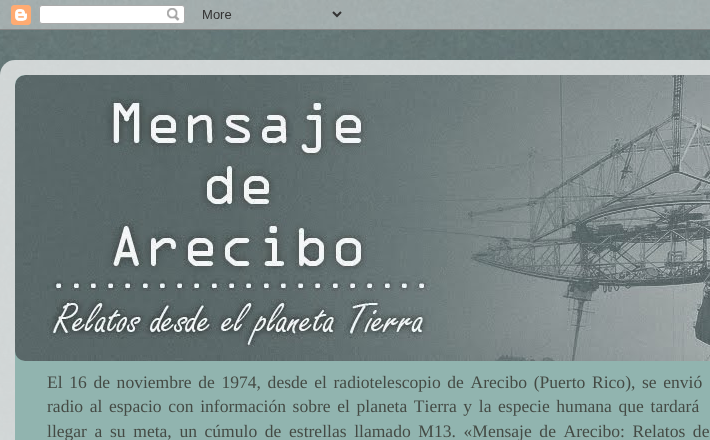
import math
import cairocffi as cairo

surface = cairo.ImageSurface(cairo.FORMAT_RGB24, 710, 440)
ctx = cairo.Context(surface)
options = cairo.FontOptions()
options.set_hint_metrics(cairo.HINT_METRICS_OFF)
options.set_hint_style(cairo.HINT_STYLE_NONE)
ctx.set_font_options(options)
ctx.set_miter_limit(4)


def rgb(r, g, b):
    ctx.set_source_rgb(r / 255, g / 255, b / 255)


def face(family, size, italic, bold):
    ctx.select_font_face(family, cairo.FONT_SLANT_ITALIC if italic else cairo.FONT_SLANT_NORMAL, cairo.FONT_WEIGHT_BOLD if bold else cairo.FONT_WEIGHT_NORMAL)
    ctx.set_font_size(size)


def tracked(x, y, s, letter, word):
    ctx.move_to(x, y)
    for ch in s:
        ctx.show_text(ch)
        ctx.rel_move_to(letter + word * (ch == ' '), 0)


def rrect(x, y, w, h, r):
    ctx.new_sub_path()
    for i, (u, v) in enumerate([(x + w - r, y + h - r), (x + r, y + h - r), (x + r, y + r), (x + w - r, y + r)]):
        ctx.arc(u, v, r, i * math.pi / 2, (i + 1) * math.pi / 2)
    ctx.close_path()


def image(path, x, y, w, h):
    ctx.save()
    ctx.set_source_surface(cairo.ImageSurface.create_from_png(path), x, y)
    ctx.rectangle(x, y, w, h)
    ctx.fill()
    ctx.restore()


rgb(255, 255, 255)
ctx.paint()
image('image0.png', 0, 0, 710, 440)
image('image1.png', 0, 0, 710, 30)
image('image2.png', 0, 60, 710, 380)
rgb(145, 180, 175)
rrect(15, 75, 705, 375, 10)
ctx.fill()
image('image3.png', 15, 75, 10, 10)
image('image4.png', 15, 75, 695, 286)
face('Liberation Serif', 17.55, 0, 0)
rgb(68, 74, 68)
tracked(47, 388, 'El 16 de noviembre de 1974, desde el radiotelescopio de Arecibo (Puerto Rico), se envió', 0, 2.25)
tracked(47, 412, 'radio al espacio con información sobre el planeta Tierra y la especie humana que tardará', 0, 2.25)
tracked(47, 437, 'llegar a su meta, un cúmulo de estrellas llamado M13. «Mensaje de Arecibo: Relatos de', 0, 3.25)
surface.write_to_png('render.png')
